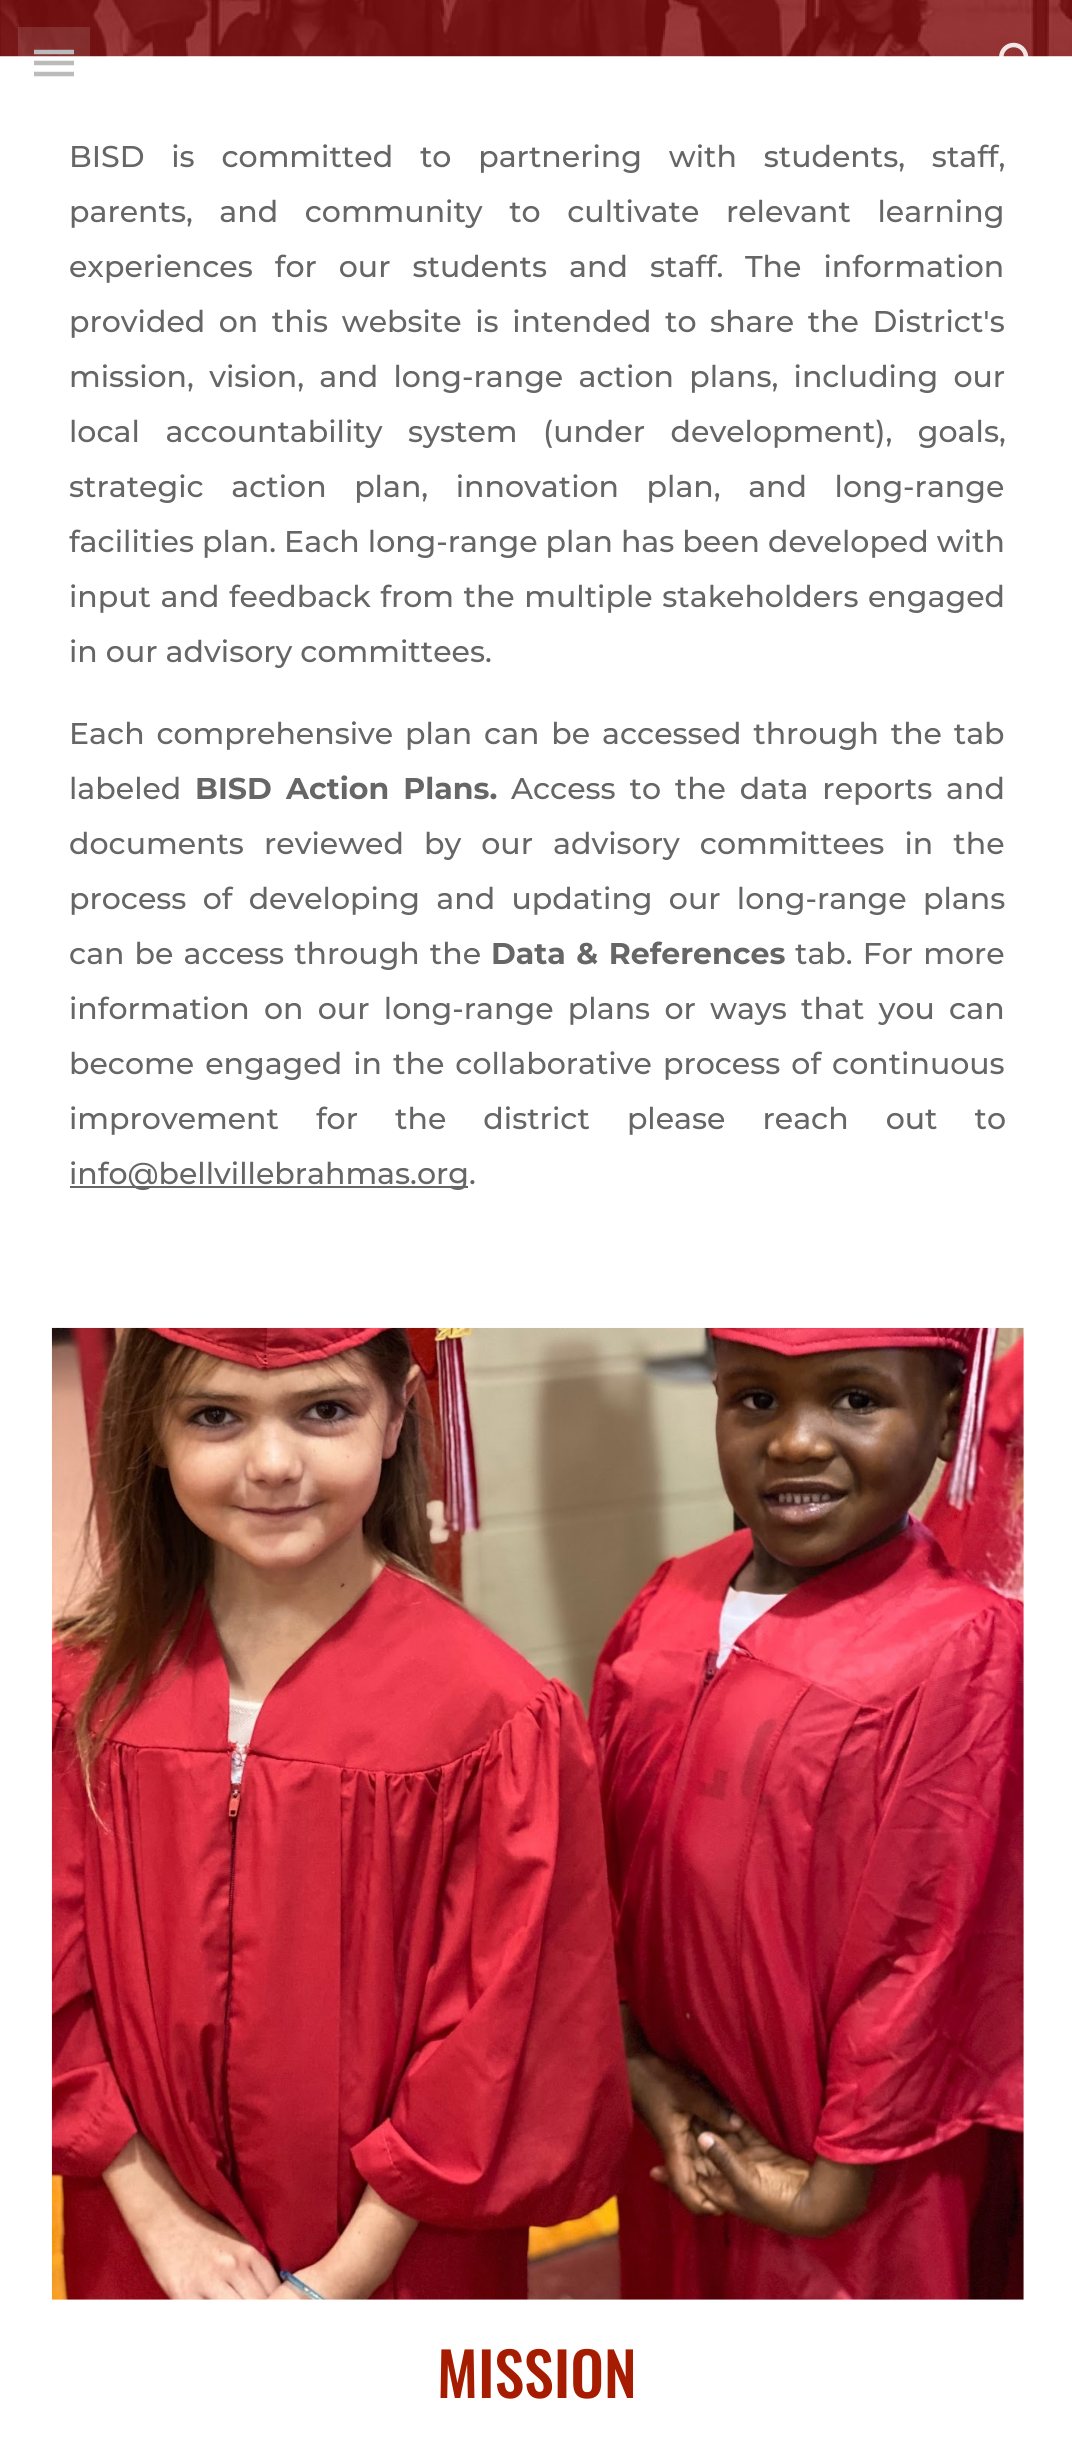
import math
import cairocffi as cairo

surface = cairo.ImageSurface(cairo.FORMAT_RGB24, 1072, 2443)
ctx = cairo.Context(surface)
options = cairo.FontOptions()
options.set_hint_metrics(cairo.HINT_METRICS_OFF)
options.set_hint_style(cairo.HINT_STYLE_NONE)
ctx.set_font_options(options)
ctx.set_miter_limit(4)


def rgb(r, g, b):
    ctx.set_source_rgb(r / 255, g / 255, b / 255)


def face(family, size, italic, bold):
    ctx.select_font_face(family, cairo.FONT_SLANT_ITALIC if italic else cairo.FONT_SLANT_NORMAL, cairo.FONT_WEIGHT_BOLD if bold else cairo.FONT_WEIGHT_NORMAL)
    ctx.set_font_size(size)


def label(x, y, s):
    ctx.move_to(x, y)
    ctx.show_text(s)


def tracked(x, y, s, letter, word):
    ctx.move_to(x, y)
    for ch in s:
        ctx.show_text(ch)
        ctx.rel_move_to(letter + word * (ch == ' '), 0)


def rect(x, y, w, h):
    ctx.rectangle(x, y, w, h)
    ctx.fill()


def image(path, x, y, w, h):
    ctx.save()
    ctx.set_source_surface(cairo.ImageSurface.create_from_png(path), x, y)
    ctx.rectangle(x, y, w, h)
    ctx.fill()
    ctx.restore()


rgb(255, 255, 255)
ctx.paint()
image('image1.png', 0, 0, 1072, 57)
ctx.new_path()
ctx.move_to(34, 52)
ctx.line_to(74, 52)
ctx.move_to(34, 63)
ctx.line_to(74, 63)
ctx.move_to(34, 74)
ctx.line_to(74, 74)
rgb(178, 178, 178)
ctx.set_line_width(4.5)
ctx.stroke()
ctx.set_source_rgba(1, 1, 1, 0.12)
rect(18, 27, 72, 49)
image('image0.png', 999, 42, 30, 15)
face('Montserrat Medium', 30, 0, 0)
rgb(102, 102, 102)
tracked(69, 167, 'BISD is committed to partnering with students, staff,', 0, 18.75)
tracked(69, 222, 'parents, and community to cultivate relevant learning', 0, 18.5)
tracked(69, 277, 'experiences for our students and staff.', 0, 14)
tracked(745, 277, 'The information', 0, 14)
tracked(69, 332, 'provided on this website is intended to share the District\'s', 0, 5.5)
tracked(69, 387, 'mission, vision, and long-range action plans, including our', 0, 7.25)
tracked(69, 442, 'local accountability system (under development), goals,', 0, 17.5)
tracked(69, 497, 'strategic action plan, innovation plan, and long-range', 0, 19.5)
label(69, 552, 'facilities plan. Each long-range plan has been developed with')
tracked(69, 607, 'input and feedback from the multiple stakeholders engaged', 0, 1.5)
label(69, 662, 'in our advisory committees.')
tracked(69, 744, 'Each comprehensive plan can be accessed through the tab', 0, 3.75)
label(69, 799, 'labeled')
face('Montserrat', 30, 0, 1)
tracked(195, 799, 'BISD Action Plans.', 0, 5.75)
face('Montserrat Medium', 30, 0, 0)
tracked(511, 799, 'Access to the data reports and', 0, 5.75)
tracked(69, 854, 'documents reviewed by our advisory committees in the', 0, 12)
tracked(69, 909, 'process of developing and updating our long-range plans', 0, 8.25)
tracked(69, 964, 'can be access through the', 0, 2)
face('Montserrat', 30, 0, 1)
tracked(491, 964, 'Data & References', 0, 2)
face('Montserrat Medium', 30, 0, 0)
tracked(795, 964, 'tab. For more', 0, 2)
tracked(69, 1019, 'information on our long-range plans or ways that you can', 0, 6.25)
tracked(69, 1074, 'become engaged in the collaborative process of continuous', 0, 3)
tracked(69, 1129, 'improvement for the district please reach out to', 0, 29)
rect(70, 1186, 398, 2)
label(69, 1184, 'info@bellvillebrahmas.org.')
image('image2.png', 51, 1327, 973, 973)
face('Oswald Medium', 60, 0, 0)
rgb(166, 28, 0)
label(437, 2398, 'MISSION')
surface.write_to_png('render.png')
